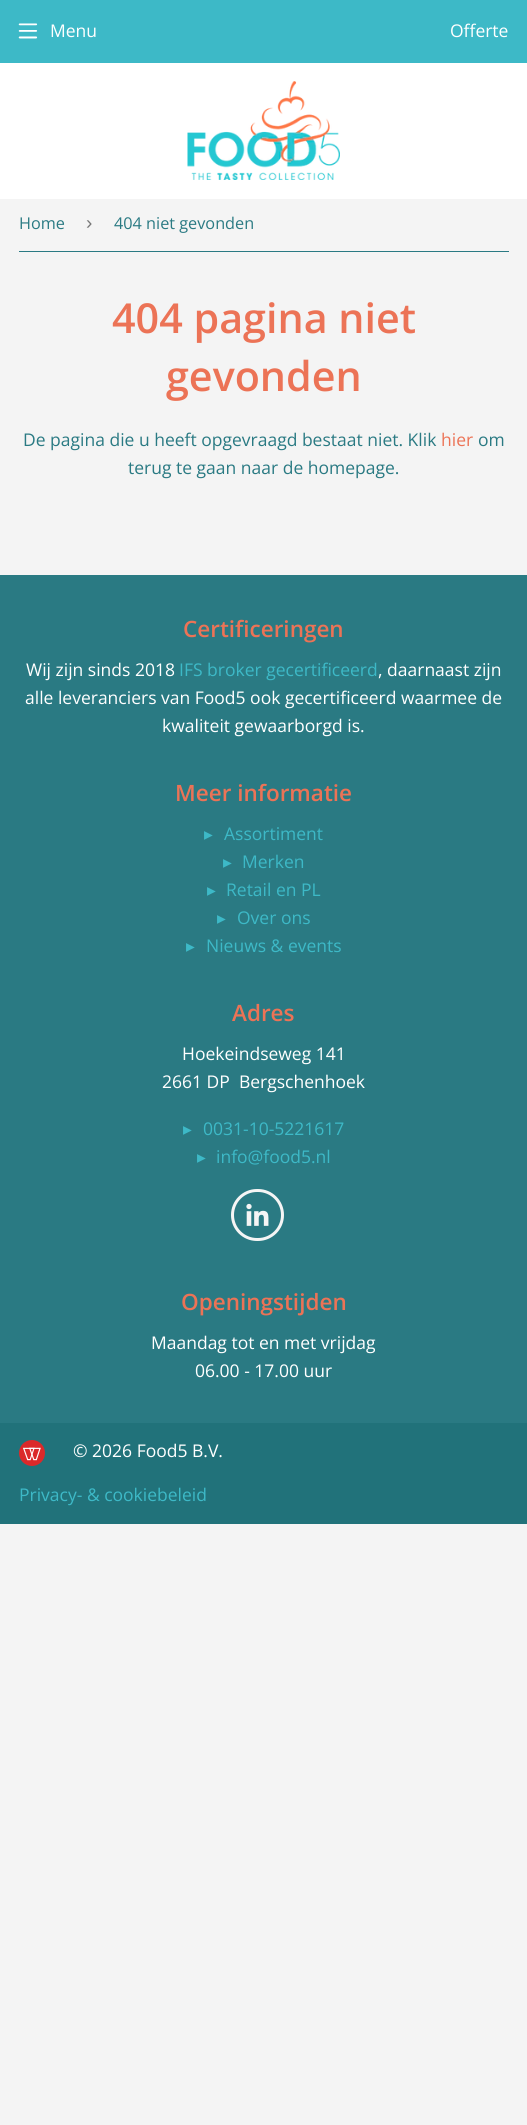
import math
import cairocffi as cairo

surface = cairo.ImageSurface(cairo.FORMAT_RGB24, 527, 2125)
ctx = cairo.Context(surface)
options = cairo.FontOptions()
options.set_hint_metrics(cairo.HINT_METRICS_OFF)
options.set_hint_style(cairo.HINT_STYLE_NONE)
ctx.set_font_options(options)
ctx.set_miter_limit(4)


def rgb(r, g, b):
    ctx.set_source_rgb(r / 255, g / 255, b / 255)


def face(family, size, italic, bold):
    ctx.select_font_face(family, cairo.FONT_SLANT_ITALIC if italic else cairo.FONT_SLANT_NORMAL, cairo.FONT_WEIGHT_BOLD if bold else cairo.FONT_WEIGHT_NORMAL)
    ctx.set_font_size(size)


def label(x, y, s):
    ctx.move_to(x, y)
    ctx.show_text(s)


def rect(x, y, w, h):
    ctx.rectangle(x, y, w, h)
    ctx.fill()


def rrect(x, y, w, h, r):
    ctx.new_sub_path()
    for i, (u, v) in enumerate([(x + w - r, y + h - r), (x + r, y + h - r), (x + r, y + r), (x + w - r, y + r)]):
        ctx.arc(u, v, r, i * math.pi / 2, (i + 1) * math.pi / 2)
    ctx.close_path()


def image(path, x, y, w, h):
    ctx.save()
    ctx.set_source_surface(cairo.ImageSurface.create_from_png(path), x, y)
    ctx.rectangle(x, y, w, h)
    ctx.fill()
    ctx.restore()


rgb(244, 244, 244)
ctx.paint()
rgb(61, 185, 199)
rect(0, 0, 527, 63)
image('image0.png', 18, 23, 20, 16)
face('Open Sans', 17.5, 0, 0)
rgb(255, 255, 255)
label(50, 37, 'Menu')
label(450, 37, 'Offerte')
rect(0, 63, 527, 136)
image('image1.png', 187, 81, 153, 99)
rgb(42, 122, 131)
rect(19, 251, 490, 1)
face('Open Sans', 16.25, 0, 0)
label(19, 229, 'Home')
face('Liberation Sans', 19, 0, 0)
rgb(118, 118, 118)
label(86, 229, '›')
face('Open Sans', 16.25, 0, 0)
rgb(42, 122, 131)
label(114, 229, '404 niet gevonden')
face('Open Sans SemiBold', 41.25, 0, 0)
rgb(236, 115, 86)
label(112, 333, '404 pagina niet')
label(166, 391, 'gevonden')
face('Open Sans', 17.5, 0, 0)
rgb(42, 122, 131)
label(23, 446, 'De pagina die u heeft opgevraagd bestaat niet. Klik')
rgb(236, 115, 86)
label(441, 446, 'hier')
rgb(42, 122, 131)
label(478, 446, 'om')
label(128, 474, 'terug te gaan naar de homepage.')
rect(0, 575, 527, 848)
face('Open Sans SemiBold', 22.5, 0, 0)
rgb(236, 115, 86)
label(183, 637, 'Certificeringen')
face('Open Sans', 17.5, 0, 0)
rgb(255, 255, 255)
label(26, 676, 'Wij zijn sinds 2018')
rgb(61, 185, 199)
label(179, 676, 'IFS broker gecertificeerd')
rgb(255, 255, 255)
label(378, 676, ', daarnaast zijn')
label(25, 704, 'alle leveranciers van Food5 ook gecertificeerd waarmee de')
label(162, 732, 'kwaliteit gewaarborgd is.')
face('Open Sans SemiBold', 22.5, 0, 0)
rgb(236, 115, 86)
label(175, 801, 'Meer informatie')
face('DejaVu Sans', 17.5, 0, 0)
rgb(61, 185, 199)
label(204, 840, '▸')
face('Open Sans', 17.5, 0, 0)
label(224, 840, 'Assortiment')
face('DejaVu Sans', 17.5, 0, 0)
label(223, 868, '▸')
face('Open Sans', 17.5, 0, 0)
label(242, 868, 'Merken')
face('DejaVu Sans', 17.5, 0, 0)
label(207, 896, '▸')
face('Open Sans', 17.5, 0, 0)
label(226, 896, 'Retail en PL')
face('DejaVu Sans', 17.5, 0, 0)
label(217, 924, '▸')
face('Open Sans', 17.5, 0, 0)
label(237, 924, 'Over ons')
face('DejaVu Sans', 17.5, 0, 0)
label(186, 952, '▸')
face('Open Sans', 17.5, 0, 0)
label(206, 952, 'Nieuws & events')
face('Open Sans SemiBold', 22.5, 0, 0)
rgb(236, 115, 86)
label(232, 1021, 'Adres')
face('Open Sans', 17.5, 0, 0)
rgb(255, 255, 255)
label(182, 1060, 'Hoekeindseweg 141')
label(162, 1088, '2661 DP  Bergschenhoek')
face('DejaVu Sans', 17.5, 0, 0)
rgb(61, 185, 199)
label(183, 1135, '▸')
face('Open Sans', 17.5, 0, 0)
label(203, 1135, '0031-10-5221617')
face('DejaVu Sans', 17.5, 0, 0)
label(197, 1163, '▸')
face('Open Sans', 17.5, 0, 0)
label(216, 1163, 'info@food5.nl')
rrect(232.5, 1190.5, 50, 49, 24.5)
rgb(245, 245, 245)
ctx.set_line_width(3)
ctx.stroke()
image('image2.png', 246, 1203, 23, 23)
face('Open Sans SemiBold', 22.5, 0, 0)
rgb(236, 115, 86)
label(181, 1310, 'Openingstijden')
face('Open Sans', 17.5, 0, 0)
rgb(255, 255, 255)
label(151, 1349, 'Maandag tot en met vrijdag')
label(195, 1377, '06.00 - 17.00 uur')
rgb(33, 114, 122)
rect(0, 1423, 527, 101)
image('image3.png', 19, 1440, 26, 26)
rgb(255, 255, 255)
label(73, 1457, '© 2026 Food5 B.V.')
rgb(61, 185, 199)
label(19, 1501, 'Privacy- & cookiebeleid')
surface.write_to_png('render.png')
